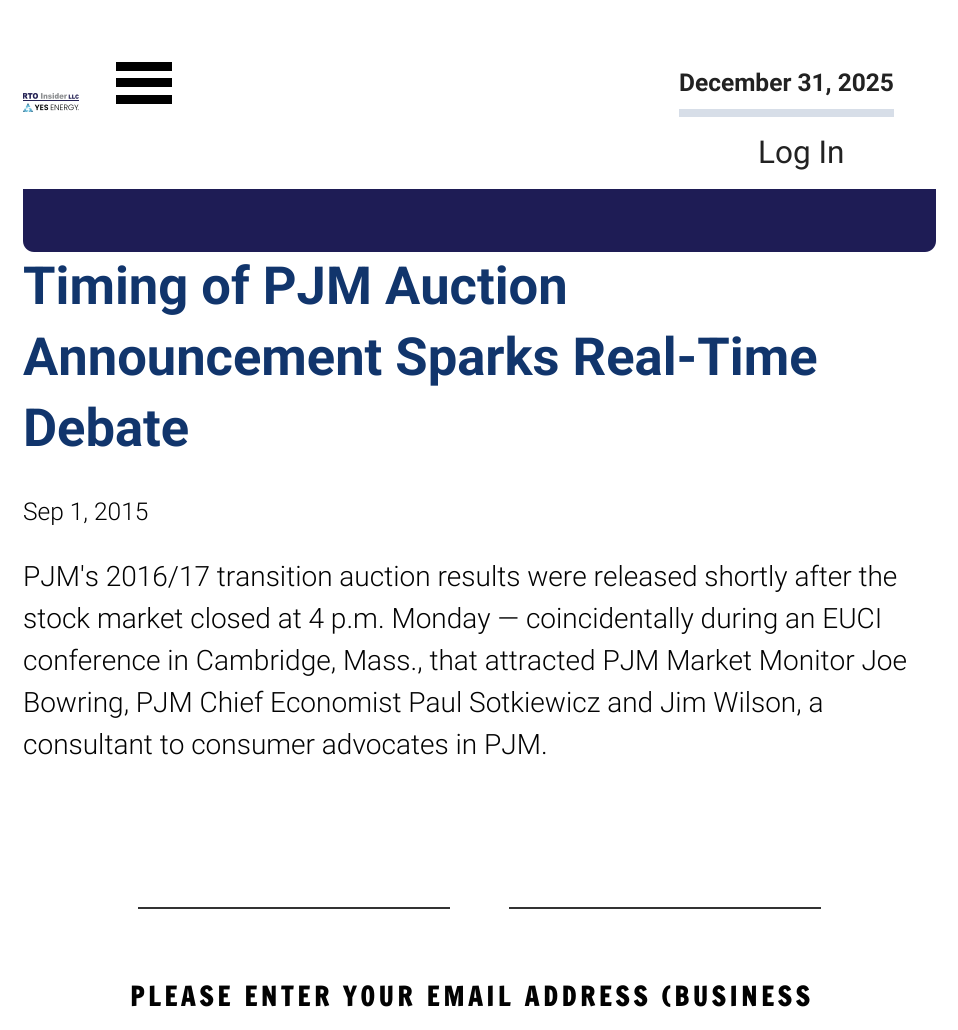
import math
import cairocffi as cairo

surface = cairo.ImageSurface(cairo.FORMAT_RGB24, 958, 1030)
ctx = cairo.Context(surface)
options = cairo.FontOptions()
options.set_hint_metrics(cairo.HINT_METRICS_OFF)
options.set_hint_style(cairo.HINT_STYLE_NONE)
ctx.set_font_options(options)
ctx.set_miter_limit(4)


def rgb(r, g, b):
    ctx.set_source_rgb(r / 255, g / 255, b / 255)


def face(family, size, italic, bold):
    ctx.select_font_face(family, cairo.FONT_SLANT_ITALIC if italic else cairo.FONT_SLANT_NORMAL, cairo.FONT_WEIGHT_BOLD if bold else cairo.FONT_WEIGHT_NORMAL)
    ctx.set_font_size(size)


def label(x, y, s):
    ctx.move_to(x, y)
    ctx.show_text(s)


def tracked(x, y, s, letter, word):
    ctx.move_to(x, y)
    for ch in s:
        ctx.show_text(ch)
        ctx.rel_move_to(letter + word * (ch == ' '), 0)


def rect(x, y, w, h):
    ctx.rectangle(x, y, w, h)
    ctx.fill()


def rrect(x, y, w, h, r):
    ctx.new_sub_path()
    for i, (u, v) in enumerate([(x + w - r, y + h - r), (x + r, y + h - r), (x + r, y + r), (x + w - r, y + r)]):
        ctx.arc(u, v, r, i * math.pi / 2, (i + 1) * math.pi / 2)
    ctx.close_path()


def image(path, x, y, w, h):
    ctx.save()
    ctx.set_source_surface(cairo.ImageSurface.create_from_png(path), x, y)
    ctx.rectangle(x, y, w, h)
    ctx.fill()
    ctx.restore()


rgb(255, 255, 255)
ctx.paint()
rgb(30, 28, 85)
rrect(23, 63, 913, 189, 11)
ctx.fill()
rgb(255, 255, 255)
rect(23, 63, 913, 126)
image('image0.png', 23, 93, 56, 19)
rgb(0, 0, 0)
rect(116, 62, 56, 9)
rect(116, 78, 56, 9)
rect(116, 95, 56, 9)
rgb(215, 222, 232)
rect(679, 109, 215, 8)
face('Roboto', 24.5, 0, 1)
rgb(34, 34, 34)
label(679, 91, 'December 31, 2025')
face('Roboto', 31.5, 0, 0)
label(758, 163, 'Log In')
face('Roboto', 52.5, 0, 1)
rgb(17, 53, 108)
label(23, 304, 'Timing of PJM Auction')
label(23, 375, 'Announcement Sparks Real-Time')
label(23, 446, 'Debate')
face('Roboto Light', 24.5, 0, 0)
rgb(2, 2, 2)
label(23, 520, 'Sep 1, 2015')
face('Roboto Light', 28, 0, 0)
label(23, 586, 'PJM\'s 2016/17 transition auction results were released shortly after the')
label(23, 628, 'stock market closed at 4 p.m. Monday — coincidentally during an EUCI')
label(23, 670, 'conference in Cambridge, Mass., that attracted PJM Market Monitor Joe')
label(23, 712, 'Bowring, PJM Chief Economist Paul Sotkiewicz and Jim Wilson, a')
label(23, 754, 'consultant to consumer advocates in PJM.')
rgb(51, 51, 51)
rect(138, 907, 312, 2)
rect(509, 907, 312, 2)
face('Francois One', 26.25, 0, 1)
rgb(2, 2, 2)
tracked(130, 1006, 'PLEASE ENTER YOUR EMAIL ADDRESS (BUSINESS', 3.95, 0)
surface.write_to_png('render.png')
